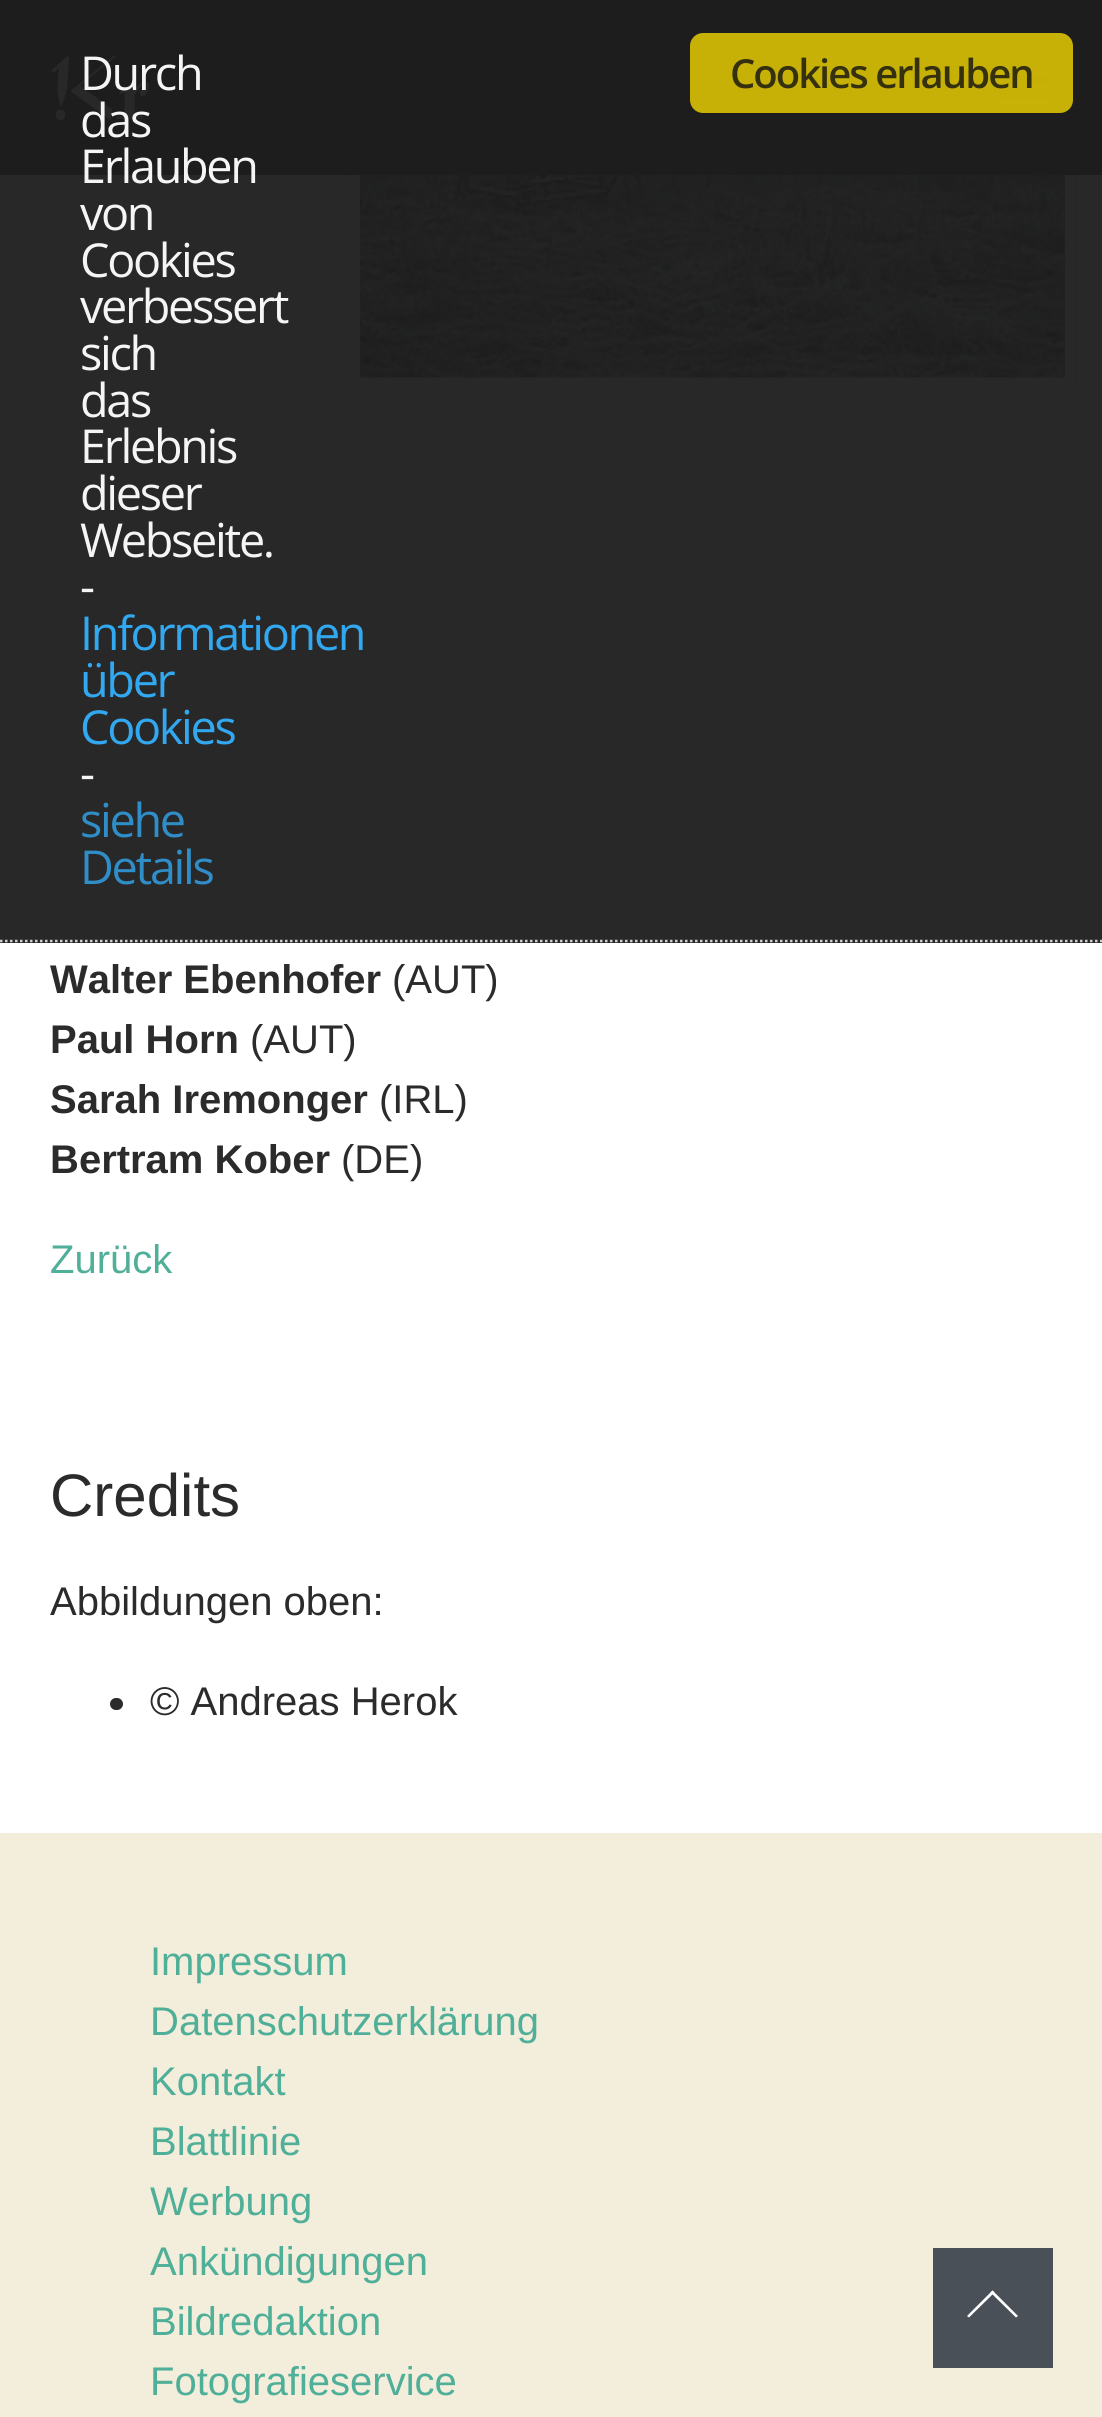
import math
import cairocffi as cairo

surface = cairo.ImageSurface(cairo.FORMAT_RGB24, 1102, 2417)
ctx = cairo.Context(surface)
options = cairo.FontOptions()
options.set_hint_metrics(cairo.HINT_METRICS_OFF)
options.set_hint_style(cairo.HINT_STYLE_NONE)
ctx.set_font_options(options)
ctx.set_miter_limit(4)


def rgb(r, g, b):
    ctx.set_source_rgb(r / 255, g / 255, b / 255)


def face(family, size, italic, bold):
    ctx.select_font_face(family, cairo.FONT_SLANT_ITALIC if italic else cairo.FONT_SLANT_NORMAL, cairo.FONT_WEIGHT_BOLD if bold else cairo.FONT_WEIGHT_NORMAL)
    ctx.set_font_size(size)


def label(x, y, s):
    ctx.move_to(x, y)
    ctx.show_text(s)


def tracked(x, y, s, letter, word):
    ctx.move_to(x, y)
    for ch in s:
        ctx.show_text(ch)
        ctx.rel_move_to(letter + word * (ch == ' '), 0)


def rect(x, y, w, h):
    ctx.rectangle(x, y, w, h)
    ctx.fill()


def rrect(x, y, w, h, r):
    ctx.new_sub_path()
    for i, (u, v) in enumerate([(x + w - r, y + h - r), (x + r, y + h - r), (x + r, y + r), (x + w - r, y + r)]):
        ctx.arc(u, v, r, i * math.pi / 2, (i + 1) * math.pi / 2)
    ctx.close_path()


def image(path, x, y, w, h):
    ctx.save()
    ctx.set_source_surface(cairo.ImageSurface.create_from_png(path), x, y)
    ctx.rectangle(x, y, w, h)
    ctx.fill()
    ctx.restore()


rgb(255, 255, 255)
ctx.paint()
rgb(40, 40, 40)
rect(0, 175, 1102, 768)
ctx.new_path()
ctx.move_to(0, 941)
ctx.line_to(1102.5, 941)
rgb(204, 204, 204)
ctx.set_line_width(2.5)
ctx.set_dash([2.5, 2.5])
ctx.stroke()
ctx.rectangle(349.5, -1.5, 727, 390)
rgb(39, 39, 39)
ctx.set_line_width(3)
ctx.set_dash([])
ctx.stroke()
rgb(30, 29, 30)
rect(0, 0, 1102, 175)
image('image0.png', 51, 54, 98, 67)
face('Open Sans', 46.75, 0, 0)
rgb(245, 245, 245)
tracked(80, 90, 'Durch', -2.3, 0)
tracked(80, 137, 'das', -2.3, 0)
tracked(80, 183, 'Erlauben', -2.3, 0)
tracked(80, 230, 'von', -2.3, 0)
tracked(80, 277, 'Cookies', -2.3, 0)
tracked(80, 323, 'verbessert', -2.3, 0)
tracked(80, 370, 'sich', -2.3, 0)
tracked(80, 417, 'das', -2.3, 0)
tracked(80, 463, 'Erlebnis', -2.3, 0)
tracked(80, 510, 'dieser', -2.3, 0)
tracked(80, 557, 'Webseite.', -2.3, 0)
tracked(80, 603, '-', -2.3, 0)
rgb(49, 168, 240)
tracked(80, 650, 'Informationen', -2.3, 0)
tracked(80, 697, 'über', -2.3, 0)
tracked(80, 744, 'Cookies', -2.3, 0)
rgb(245, 245, 245)
tracked(80, 790, '-', -2.3, 0)
rgb(47, 142, 200)
tracked(80, 837, 'siehe', -2.3, 0)
tracked(80, 884, 'Details', -2.3, 0)
rgb(35, 35, 35)
rect(998, 85, 55, 5)
rect(998, 70, 55, 5)
rect(998, 100, 55, 5)
ctx.set_source_rgba(0.945, 0.839, 0, 0.8)
rrect(690, 33, 383, 80, 13)
ctx.fill()
face('Open Sans SemiBold', 40, 0, 0)
rgb(53, 49, 15)
tracked(730, 88, 'Cookies erlauben', -2, 0)
image('image1.png', 360, 175, 705, 203)
face('Liberation Sans', 40, 0, 1)
rgb(43, 43, 43)
label(50, 993, 'Walter Ebenhofer')
face('Liberation Sans', 40, 0, 0)
label(392, 993, '(AUT)')
face('Liberation Sans', 40, 0, 1)
label(50, 1053, 'Paul Horn')
face('Liberation Sans', 40, 0, 0)
label(250, 1053, '(AUT)')
face('Liberation Sans', 40, 0, 1)
label(50, 1113, 'Sarah Iremonger')
face('Liberation Sans', 40, 0, 0)
label(379, 1113, '(IRL)')
face('Liberation Sans', 40, 0, 1)
label(50, 1173, 'Bertram Kober')
face('Liberation Sans', 40, 0, 0)
label(341, 1173, '(DE)')
rgb(79, 175, 152)
label(50, 1273, 'Zurück')
face('Liberation Sans', 60, 0, 0)
rgb(43, 43, 43)
label(50, 1516, 'Credits')
face('Liberation Sans', 40, 0, 0)
label(50, 1615, 'Abbildungen oben:')
rrect(110, 1698, 13, 12, 6)
ctx.fill()
label(150, 1715, '© Andreas Herok')
rgb(242, 238, 219)
rect(0, 1833, 1102, 584)
rgb(79, 175, 152)
label(150, 1975, 'Impressum')
label(150, 2035, 'Datenschutzerklärung')
label(150, 2095, 'Kontakt')
label(150, 2155, 'Blattlinie')
label(150, 2215, 'Werbung')
label(150, 2275, 'Ankündigungen')
label(150, 2335, 'Bildredaktion')
label(150, 2395, 'Fotografieservice')
rgb(73, 80, 87)
rect(933, 2248, 120, 120)
rgb(255, 255, 255)
ctx.new_path()
ctx.move_to(992.5, 2290.5)
ctx.line_to(1018, 2316)
ctx.line_to(1016, 2317.5)
ctx.line_to(990.5, 2292.5)
ctx.close_path()
ctx.fill()
ctx.new_path()
ctx.move_to(992.5, 2290.5)
ctx.line_to(994.5, 2292.5)
ctx.line_to(969, 2317.5)
ctx.line_to(967, 2316)
ctx.close_path()
ctx.fill()
surface.write_to_png('render.png')
